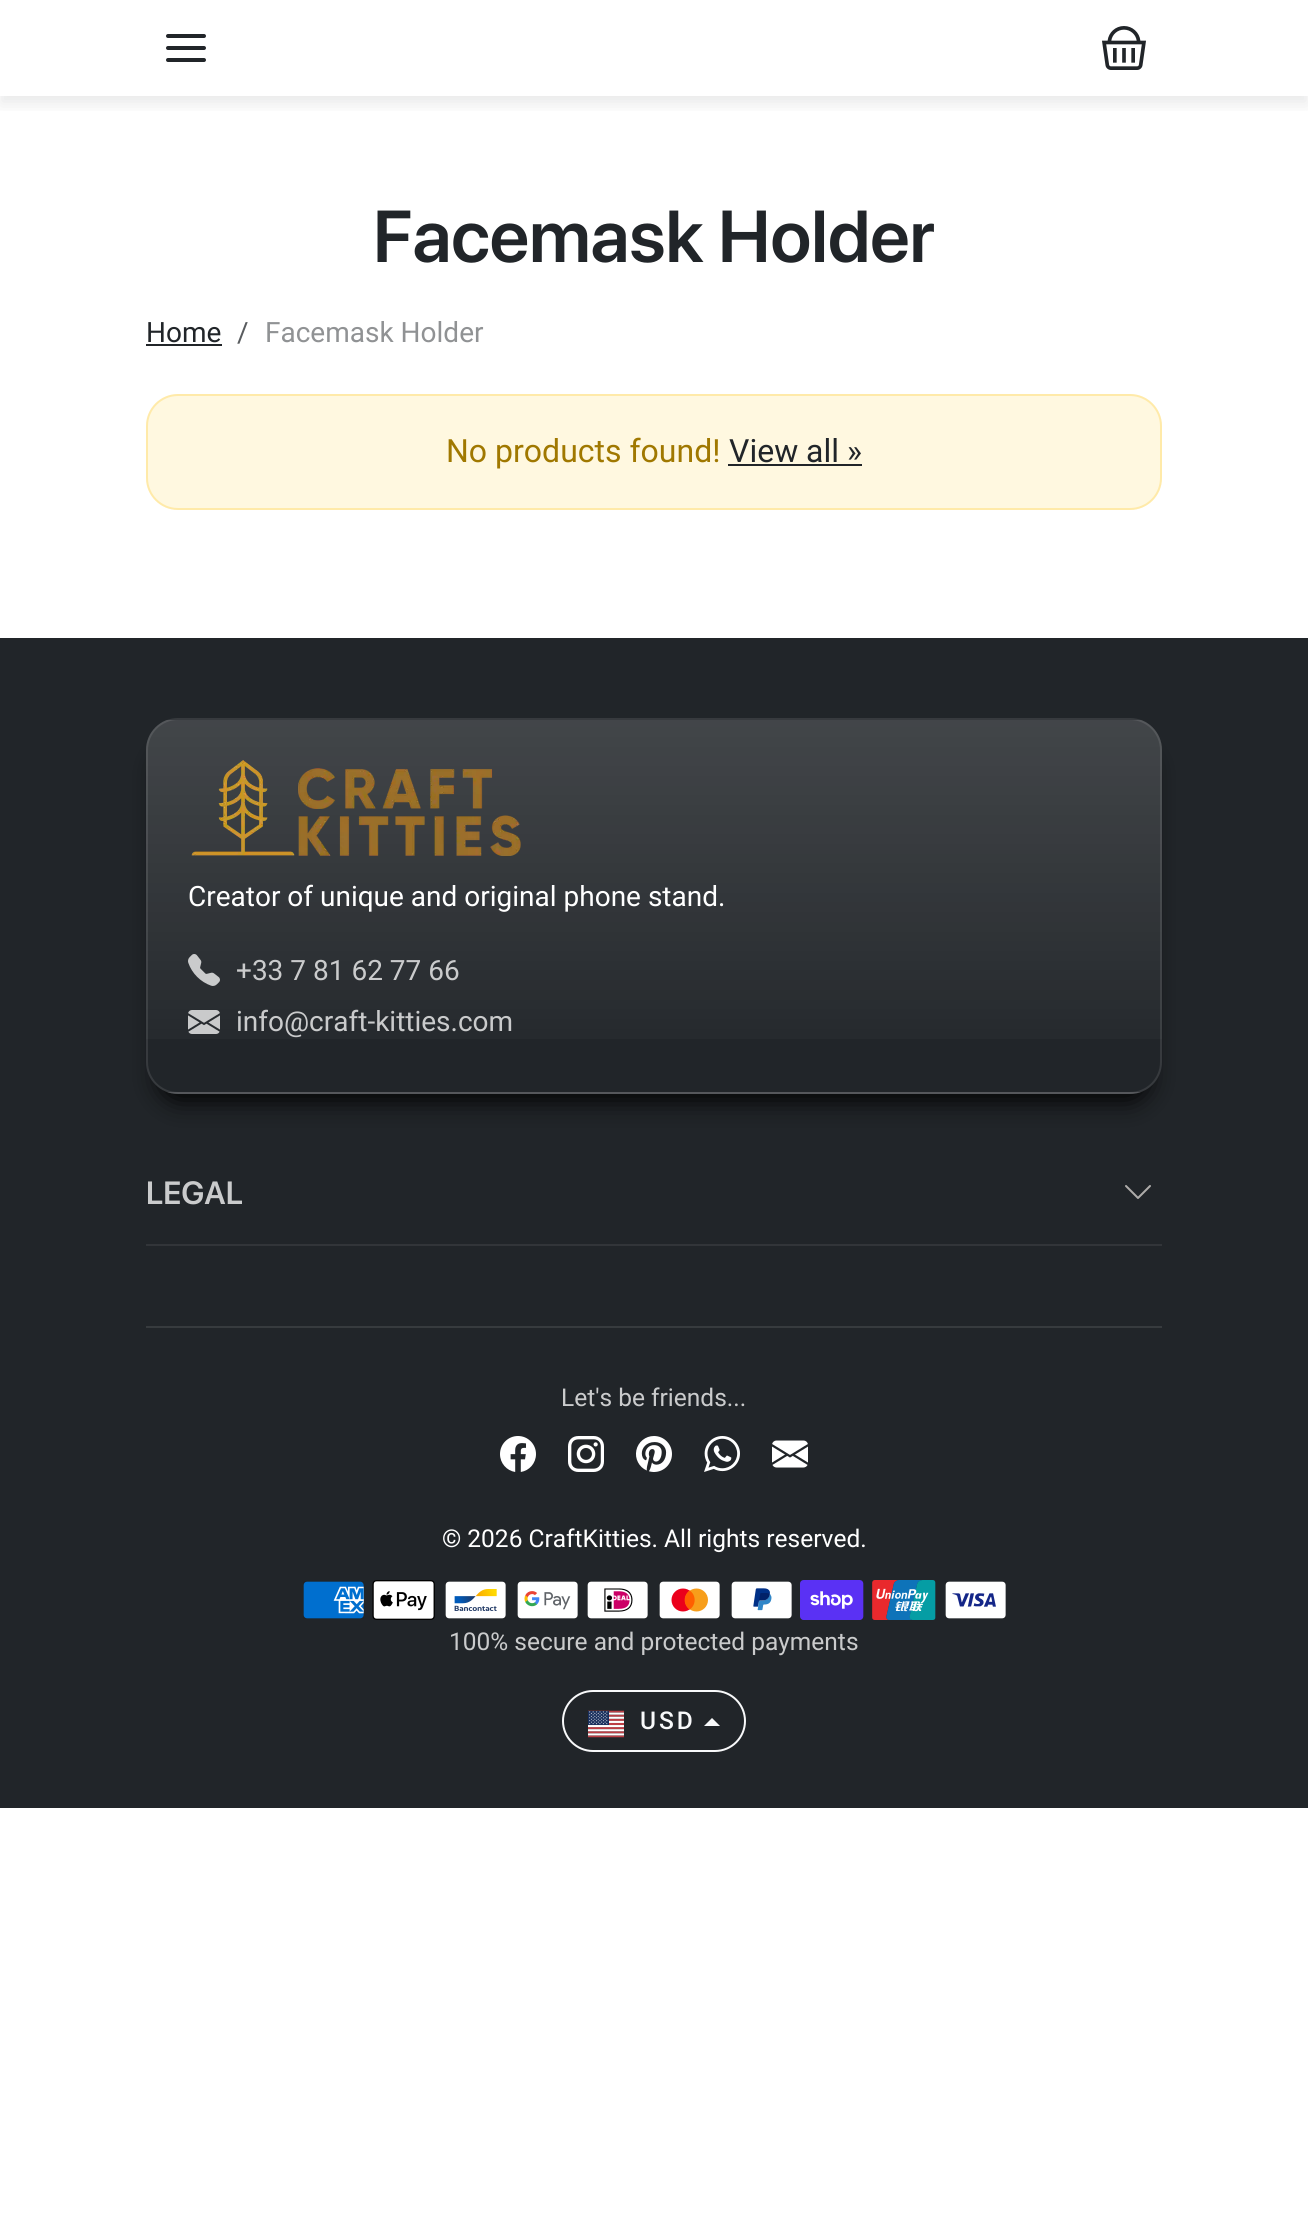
import math
import cairocffi as cairo

surface = cairo.ImageSurface(cairo.FORMAT_RGB24, 1308, 2236)
ctx = cairo.Context(surface)
options = cairo.FontOptions()
options.set_hint_metrics(cairo.HINT_METRICS_OFF)
options.set_hint_style(cairo.HINT_STYLE_NONE)
ctx.set_font_options(options)
ctx.set_miter_limit(4)


def rgb(r, g, b):
    ctx.set_source_rgb(r / 255, g / 255, b / 255)


def face(family, size, italic, bold):
    ctx.select_font_face(family, cairo.FONT_SLANT_ITALIC if italic else cairo.FONT_SLANT_NORMAL, cairo.FONT_WEIGHT_BOLD if bold else cairo.FONT_WEIGHT_NORMAL)
    ctx.set_font_size(size)


def label(x, y, s):
    ctx.move_to(x, y)
    ctx.show_text(s)


def tracked(x, y, s, letter, word):
    ctx.move_to(x, y)
    for ch in s:
        ctx.show_text(ch)
        ctx.rel_move_to(letter + word * (ch == ' '), 0)


def rect(x, y, w, h):
    ctx.rectangle(x, y, w, h)
    ctx.fill()


def rrect(x, y, w, h, r):
    ctx.new_sub_path()
    for i, (u, v) in enumerate([(x + w - r, y + h - r), (x + r, y + h - r), (x + r, y + r), (x + w - r, y + r)]):
        ctx.arc(u, v, r, i * math.pi / 2, (i + 1) * math.pi / 2)
    ctx.close_path()


def soft_shadow(x, y, w, h, r, blur, alpha):
    ctx.push_group_with_content(cairo.CONTENT_ALPHA)
    ctx.set_operator(cairo.OPERATOR_SOURCE)
    for i in range(15, -16, -2):
        e = blur * i / 6
        if min(w, h) + 2 * e > 0:
            ctx.set_source_rgba(0, 0, 0, alpha * math.erfc((i - 1) / 8.5) / 2)
            rrect(x - e, y - e, w + 2 * e, h + 2 * e, max(0, min(r + e + blur * .6, min(w, h) / 2 + e)))
            ctx.fill()
    ctx.mask(ctx.pop_group())


def image(path, x, y, w, h):
    ctx.save()
    ctx.set_source_surface(cairo.ImageSurface.create_from_png(path), x, y)
    ctx.rectangle(x, y, w, h)
    ctx.fill()
    ctx.restore()


rgb(255, 255, 255)
ctx.paint()
ctx.save()
ctx.rectangle(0, 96, 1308, 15)
ctx.clip()
rgb(33, 37, 41)
soft_shadow(0, 8, 1308, 96, 0, 8, 0.1)
ctx.restore()
ctx.new_path()
ctx.move_to(168, 48)
ctx.line_to(204, 48)
ctx.move_to(168, 36)
ctx.line_to(204, 36)
ctx.move_to(168, 60)
ctx.line_to(204, 60)
rgb(33, 37, 41)
ctx.set_line_width(4)
ctx.set_line_cap(cairo.LINE_CAP_ROUND)
ctx.set_line_join(cairo.LINE_JOIN_ROUND)
ctx.stroke()
image('image0.png', 1102, 26, 44, 44)
face('SF Pro Display SemiBold', 73, 0, 0)
label(373, 262, 'Facemask Holder')
face('Roboto', 28, 0, 0)
label(146, 342, 'Home')
rect(146, 344, 76, 2)
rgb(89, 92, 95)
label(237, 342, '/')
rgb(144, 146, 148)
label(265, 342, 'Facemask Holder')
rgb(255, 248, 224)
rrect(146, 394, 1016, 116, 32)
ctx.fill()
rrect(147, 395, 1014, 114, 31)
ctx.set_source_rgba(1, 0.757, 0.027, 0.25)
ctx.set_line_width(2)
ctx.set_line_cap(cairo.LINE_CAP_BUTT)
ctx.set_line_join(cairo.LINE_JOIN_MITER)
ctx.stroke()
face('Roboto', 32, 0, 0)
rgb(160, 120, 0)
label(446, 462, 'No products found!')
rgb(33, 37, 41)
label(729, 462, 'View all »')
rect(728, 464, 134, 2)
rect(0, 638, 1308, 1170)
rgb(0, 0, 0)
soft_shadow(160, 752, 988, 348, 18, 13, 1)
rgb(33, 37, 41)
rrect(146, 718, 1016, 376, 32)
ctx.fill()
ctx.save()
rrect(146, 718, 1016, 376, 32)
ctx.clip()
gradient = cairo.LinearGradient(654, 720, 654, 1092)
gradient.add_color_stop_rgba(0, 1, 1, 1, 0.15)
gradient.add_color_stop_rgba(1, 1, 1, 1, 0)
ctx.set_source(gradient)
rect(146, 720, 1016, 319)
gradient = cairo.LinearGradient(654, 1092, 654, 1464)
gradient.add_color_stop_rgba(0, 1, 1, 1, 0.15)
gradient.add_color_stop_rgba(1, 1, 1, 1, 0)
ctx.set_source(gradient)
rect(167, 1092, 974, 2)
ctx.restore()
rrect(147, 719, 1014, 374, 31)
ctx.set_source_rgba(1, 1, 1, 0.1)
ctx.stroke()
image('image1.png', 191, 760, 330, 97)
face('Roboto', 28, 0, 0)
rgb(255, 255, 255)
label(188, 906, 'Creator of unique and original phone stand.')
image('image2.png', 188, 954, 32, 32)
rgb(202, 203, 204)
label(236, 980, '+33 7 81 62 77 66')
image('image3.png', 188, 1010, 32, 24)
label(236, 1031, 'info@craft-kitties.com')
rgb(50, 53, 57)
rect(146, 1244, 1016, 2)
face('SF Pro Display SemiBold', 32, 0, 0)
rgb(202, 203, 204)
label(146, 1204, 'LEGAL')
image('image4.png', 1125, 1185, 26, 14)
rgb(55, 59, 62)
rect(146, 1326, 1016, 2)
face('Roboto', 24.5, 0, 0)
rgb(202, 203, 204)
label(561, 1406, 'Let\'s be friends...')
image('image5.png', 500, 1436, 36, 36)
image('image6.png', 568, 1436, 36, 36)
image('image7.png', 636, 1436, 36, 36)
image('image8.png', 704, 1436, 36, 36)
image('image9.png', 772, 1440, 36, 28)
rgb(255, 255, 255)
label(442, 1547, '© 2026 CraftKitties. All rights reserved.')
image('image10.png', 303, 1581, 61, 38)
image('image11.png', 372, 1580, 63, 40)
image('image12.png', 445, 1581, 61, 38)
image('image13.png', 517, 1581, 61, 38)
image('image14.png', 587, 1581, 61, 38)
image('image15.png', 659, 1581, 61, 38)
image('image16.png', 731, 1581, 61, 38)
image('image17.png', 800, 1580, 64, 40)
image('image18.png', 872, 1580, 64, 40)
image('image19.png', 945, 1581, 61, 38)
rgb(202, 203, 204)
label(449, 1650, '100% secure and protected payments')
rrect(563, 1691, 182, 60, 30)
rgb(248, 249, 250)
ctx.stroke()
image('image20.png', 588, 1710, 36, 28)
face('Roboto Medium', 24.5, 0, 0)
tracked(640, 1729, 'USD', 3, 0)
ctx.new_path()
ctx.move_to(720, 1726)
ctx.line_to(704, 1726)
ctx.line_to(712, 1718)
ctx.close_path()
ctx.fill()
surface.write_to_png('render.png')
